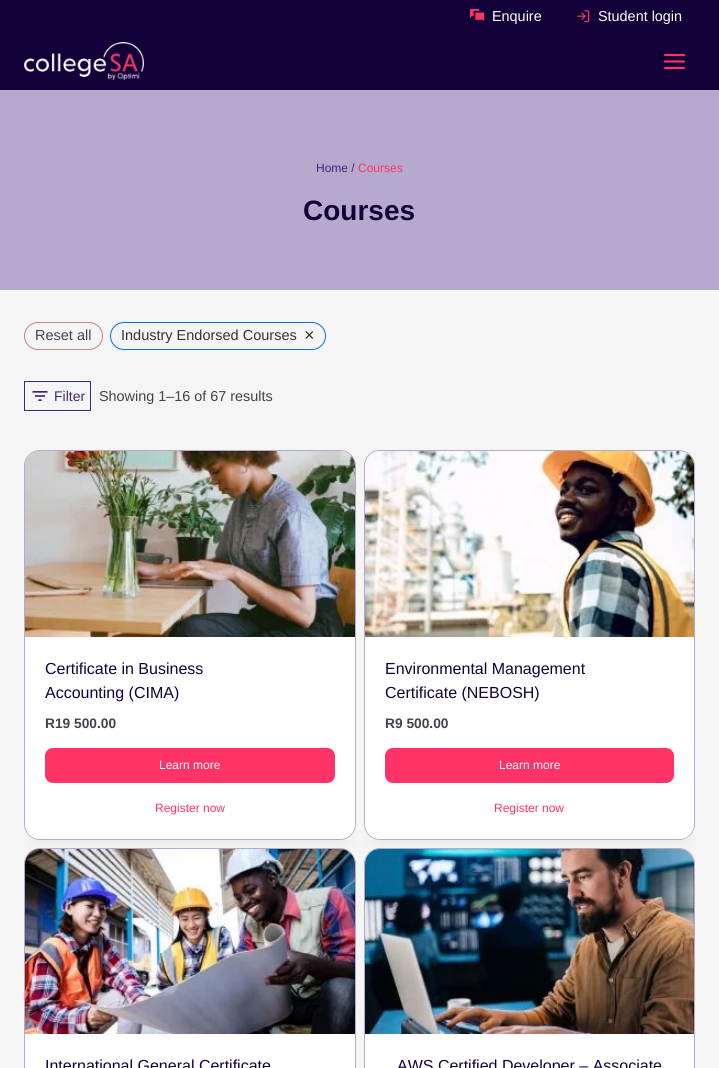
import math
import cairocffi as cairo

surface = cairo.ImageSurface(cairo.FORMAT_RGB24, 719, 1068)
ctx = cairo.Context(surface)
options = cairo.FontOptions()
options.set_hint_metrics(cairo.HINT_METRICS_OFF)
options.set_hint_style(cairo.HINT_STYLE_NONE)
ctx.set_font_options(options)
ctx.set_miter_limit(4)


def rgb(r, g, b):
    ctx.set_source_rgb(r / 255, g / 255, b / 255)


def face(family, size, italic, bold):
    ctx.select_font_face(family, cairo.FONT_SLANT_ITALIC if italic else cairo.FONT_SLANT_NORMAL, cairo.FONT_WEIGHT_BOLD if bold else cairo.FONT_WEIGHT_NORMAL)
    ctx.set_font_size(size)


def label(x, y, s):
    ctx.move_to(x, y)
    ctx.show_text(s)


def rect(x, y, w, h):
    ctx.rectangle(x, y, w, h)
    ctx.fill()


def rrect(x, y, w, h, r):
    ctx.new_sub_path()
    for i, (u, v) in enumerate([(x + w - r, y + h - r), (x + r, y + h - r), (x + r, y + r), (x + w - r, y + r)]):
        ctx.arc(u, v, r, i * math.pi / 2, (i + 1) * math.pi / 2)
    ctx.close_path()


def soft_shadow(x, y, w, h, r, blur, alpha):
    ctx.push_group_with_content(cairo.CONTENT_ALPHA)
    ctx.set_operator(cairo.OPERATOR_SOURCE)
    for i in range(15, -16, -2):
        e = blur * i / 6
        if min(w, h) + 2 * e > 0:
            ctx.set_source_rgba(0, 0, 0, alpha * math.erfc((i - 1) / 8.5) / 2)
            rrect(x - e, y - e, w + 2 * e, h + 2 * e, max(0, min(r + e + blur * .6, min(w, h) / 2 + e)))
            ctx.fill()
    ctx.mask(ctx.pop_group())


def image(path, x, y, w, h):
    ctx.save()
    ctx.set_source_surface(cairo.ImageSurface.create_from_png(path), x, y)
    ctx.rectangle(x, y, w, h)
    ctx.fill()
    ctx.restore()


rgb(245, 245, 245)
ctx.paint()
rgb(19, 0, 56)
rect(0, 0, 719, 90)
image('image0.png', 470, 9, 14, 12)
face('Liberation Sans', 14.4, 0, 0)
rgb(255, 255, 255)
label(492, 21, 'Enquire')
image('image1.png', 577, 10, 13, 13)
label(598, 21, 'Student login')
image('image2.png', 24, 42, 120, 38)
ctx.new_path()
ctx.move_to(665, 61.5)
ctx.line_to(684, 61.5)
ctx.move_to(665, 55)
ctx.line_to(684, 55)
ctx.move_to(665, 68)
ctx.line_to(684, 68)
rgb(255, 51, 102)
ctx.set_line_width(2.1)
ctx.set_line_cap(cairo.LINE_CAP_ROUND)
ctx.set_line_join(cairo.LINE_JOIN_ROUND)
ctx.stroke()
rgb(181, 169, 205)
rect(0, 90, 719, 200)
face('Liberation Sans', 12, 0, 0)
rgb(67, 37, 125)
label(316, 172, 'Home /')
rgb(255, 51, 102)
label(358, 172, 'Courses')
face('Liberation Sans', 28, 0, 1)
rgb(19, 0, 56)
label(303, 220, 'Courses')
rrect(24.5, 322.5, 78, 27, 13.5)
rgb(204, 129, 129)
ctx.set_line_width(1)
ctx.set_line_cap(cairo.LINE_CAP_BUTT)
ctx.set_line_join(cairo.LINE_JOIN_MITER)
ctx.stroke()
face('Liberation Sans', 14.5, 0, 0)
rgb(66, 66, 76)
label(35, 340, 'Reset all')
rrect(110.5, 322.5, 215, 27, 13.5)
rgb(5, 112, 226)
ctx.stroke()
rgb(51, 51, 51)
label(121, 340, 'Industry Endorsed Courses')
face('Liberation Sans', 18, 0, 0)
label(304, 341, '×')
ctx.rectangle(24.5, 381.5, 66, 29)
rgb(67, 37, 125)
ctx.stroke()
image('image3.png', 32, 391, 16, 10)
face('Liberation Sans', 14, 0, 0)
label(54, 401, 'Filter')
face('Liberation Sans', 14.4, 0, 0)
rgb(66, 66, 76)
label(99, 401, 'Showing 1–16 of 67 results')
rgb(0, 0, 0)
soft_shadow(34, 475, 312, 370, 6, 7.5, 0.05)
rrect(24.5, 450.5, 331, 389, 15.5)
rgb(181, 169, 205)
ctx.stroke()
image('image4.png', 25, 451, 330, 186)
rgb(255, 255, 255)
ctx.new_path()
ctx.move_to(25, 637)
ctx.line_to(355, 637)
ctx.line_to(355, 824)
ctx.curve_to(355, 832.5, 348.5, 839, 340, 839)
ctx.line_to(40, 839)
ctx.curve_to(31.5, 839, 25, 832.5, 25, 824)
ctx.close_path()
ctx.fill()
face('Liberation Sans', 16, 0, 0)
rgb(19, 0, 56)
label(45, 674, 'Certificate in Business')
label(45, 698, 'Accounting (CIMA)')
face('Liberation Sans', 13.75, 0, 1)
rgb(66, 66, 76)
label(45, 728, 'R19 500.00')
rgb(255, 51, 102)
rrect(45, 748, 290, 35, 8)
ctx.fill()
face('Liberation Sans', 12, 0, 0)
rgb(255, 255, 255)
label(159, 769, 'Learn more')
rgb(255, 51, 102)
label(155, 812, 'Register now')
rgb(0, 0, 0)
soft_shadow(374, 475, 311, 370, 6, 7.5, 0.05)
rrect(364.5, 450.5, 330, 389, 15.5)
rgb(181, 169, 205)
ctx.stroke()
image('image5.png', 365, 451, 329, 186)
rgb(255, 255, 255)
ctx.new_path()
ctx.move_to(365, 637)
ctx.line_to(694, 637)
ctx.line_to(694, 824)
ctx.curve_to(694, 832.5, 687.5, 839, 679, 839)
ctx.line_to(380, 839)
ctx.curve_to(371.5, 839, 365, 832.5, 365, 824)
ctx.close_path()
ctx.fill()
face('Liberation Sans', 16, 0, 0)
rgb(19, 0, 56)
label(385, 674, 'Environmental Management')
label(385, 698, 'Certificate (NEBOSH)')
face('Liberation Sans', 13.75, 0, 1)
rgb(66, 66, 76)
label(385, 728, 'R9 500.00')
rgb(255, 51, 102)
rrect(385, 748, 289, 35, 8)
ctx.fill()
face('Liberation Sans', 12, 0, 0)
rgb(255, 255, 255)
label(499, 769, 'Learn more')
rgb(255, 51, 102)
label(494, 812, 'Register now')
rgb(255, 255, 255)
rrect(24.5, 848.5, 331, 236, 15.5)
ctx.fill_preserve()
rgb(181, 169, 205)
ctx.stroke()
image('image6.png', 25, 849, 330, 185)
face('Liberation Sans', 16, 0, 0)
rgb(19, 0, 56)
label(45, 1071, 'International General Certificate')
rgb(255, 255, 255)
rrect(364.5, 848.5, 330, 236, 15.5)
ctx.fill_preserve()
rgb(181, 169, 205)
ctx.stroke()
image('image7.png', 365, 849, 329, 185)
rgb(19, 0, 56)
label(397, 1071, 'AWS Certified Developer – Associate')
surface.write_to_png('render.png')
